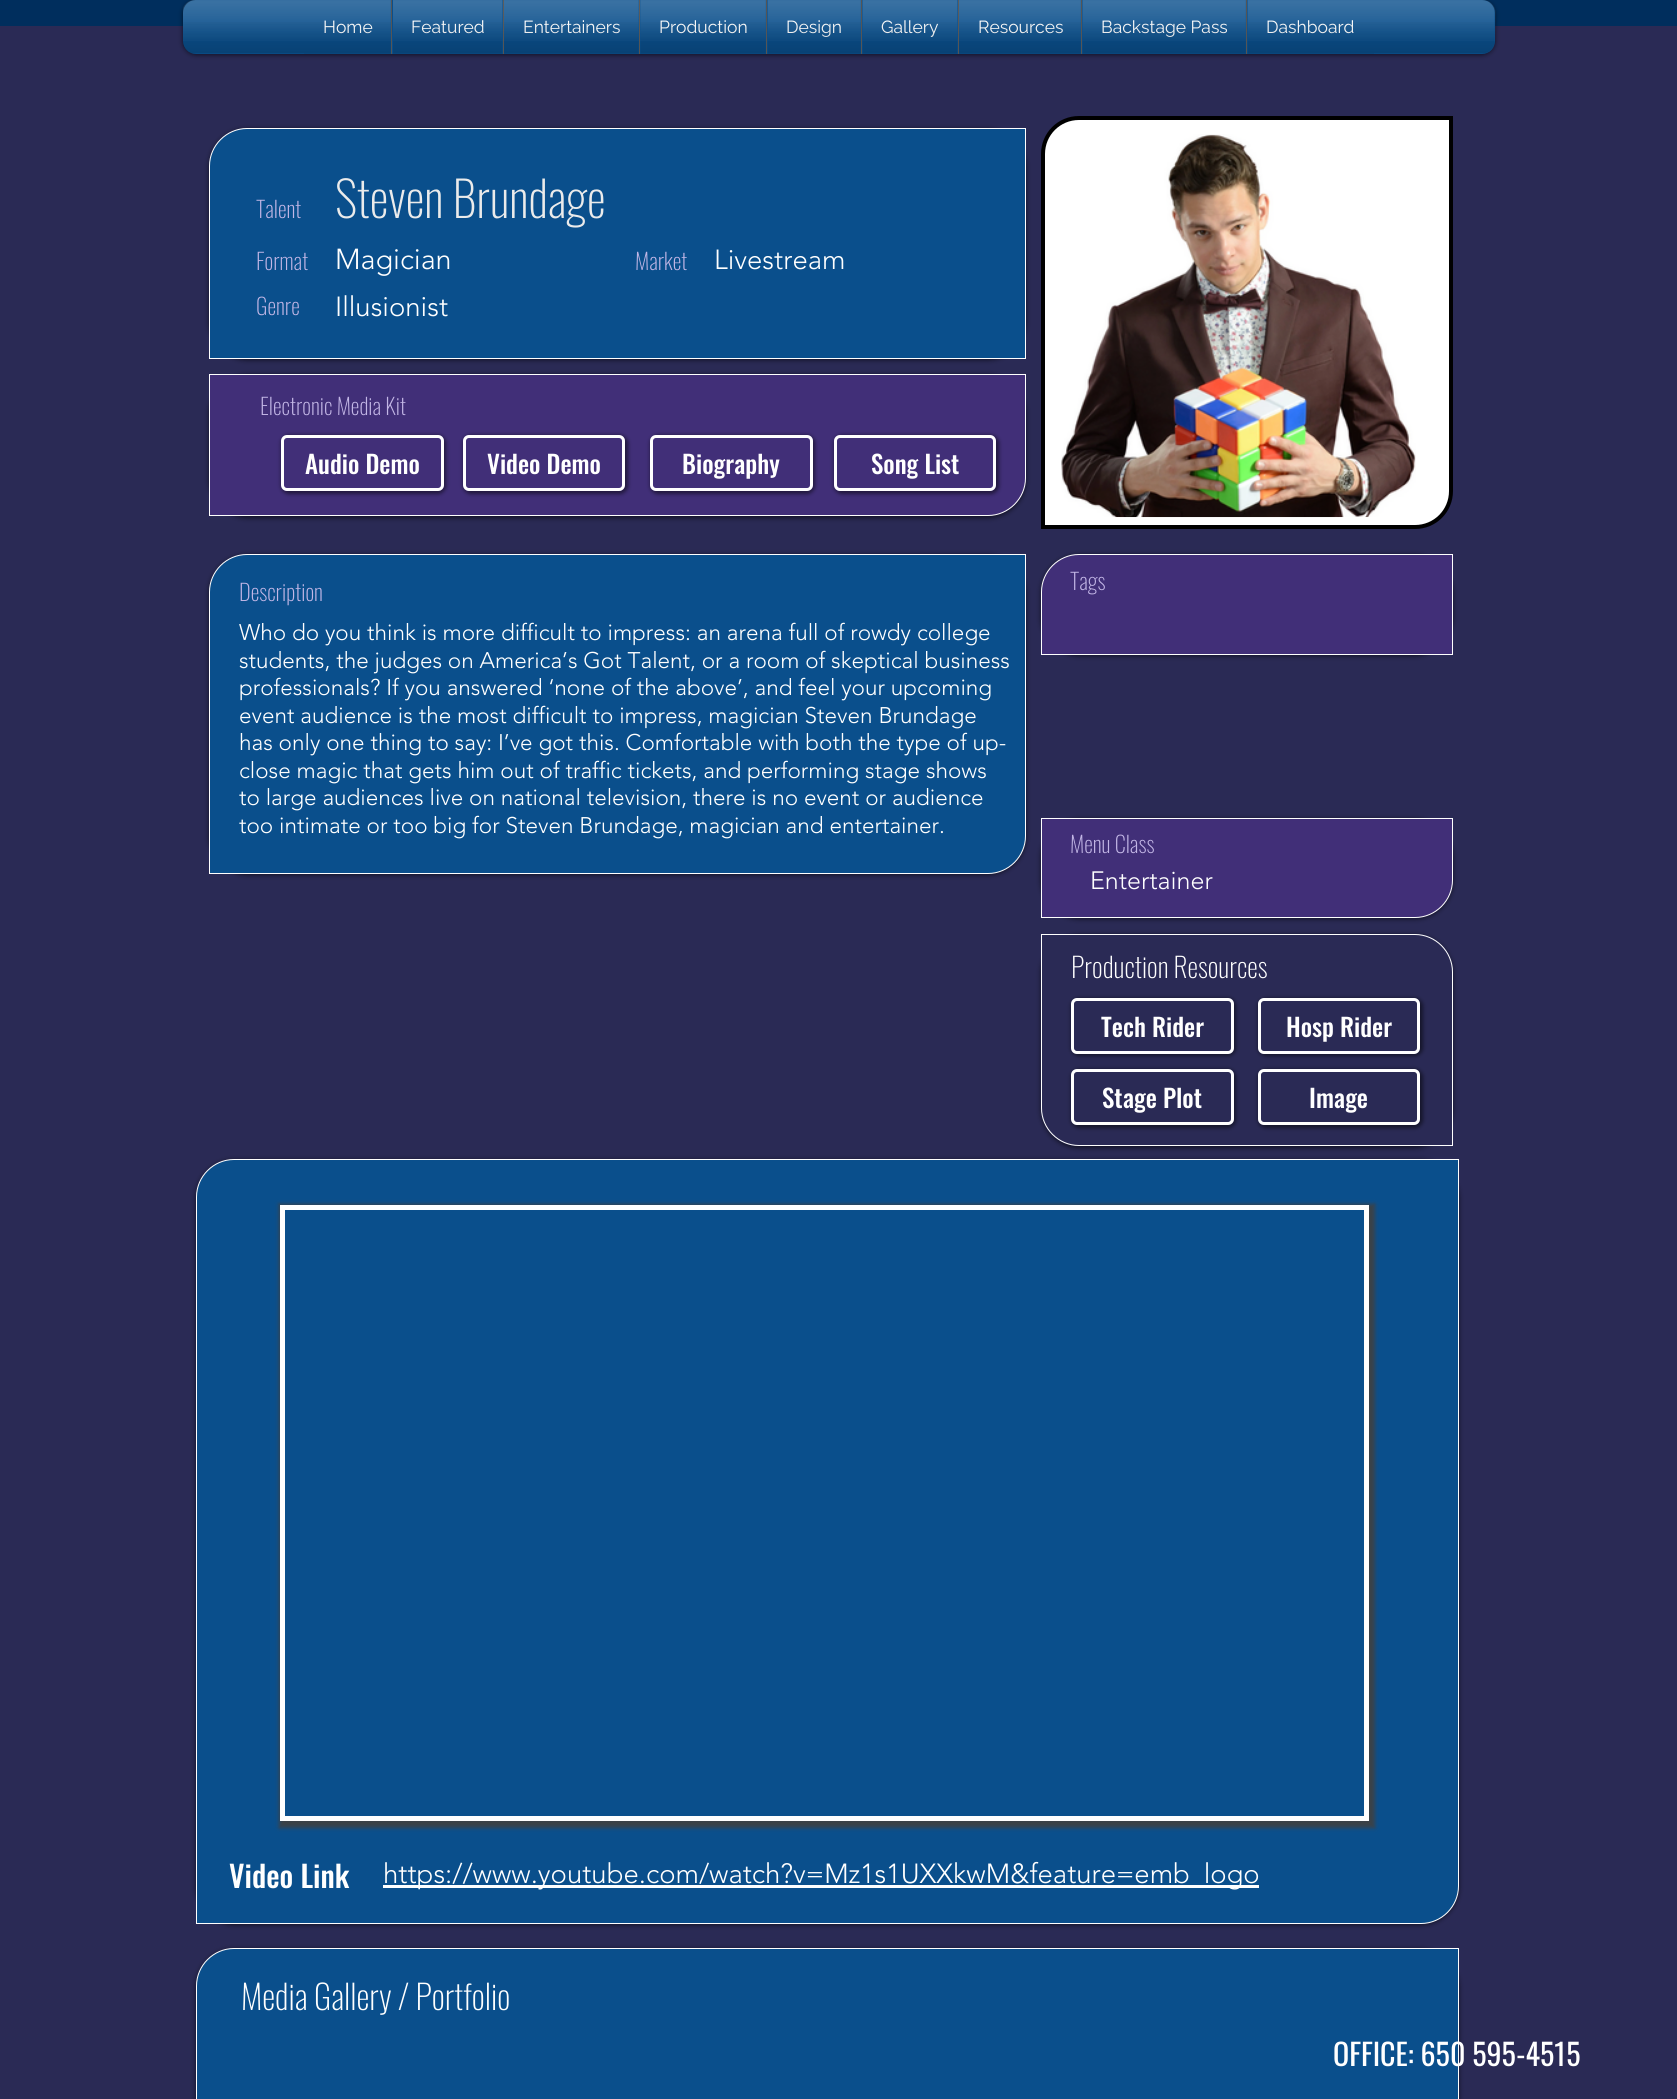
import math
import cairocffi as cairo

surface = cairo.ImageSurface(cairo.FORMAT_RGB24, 1677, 2099)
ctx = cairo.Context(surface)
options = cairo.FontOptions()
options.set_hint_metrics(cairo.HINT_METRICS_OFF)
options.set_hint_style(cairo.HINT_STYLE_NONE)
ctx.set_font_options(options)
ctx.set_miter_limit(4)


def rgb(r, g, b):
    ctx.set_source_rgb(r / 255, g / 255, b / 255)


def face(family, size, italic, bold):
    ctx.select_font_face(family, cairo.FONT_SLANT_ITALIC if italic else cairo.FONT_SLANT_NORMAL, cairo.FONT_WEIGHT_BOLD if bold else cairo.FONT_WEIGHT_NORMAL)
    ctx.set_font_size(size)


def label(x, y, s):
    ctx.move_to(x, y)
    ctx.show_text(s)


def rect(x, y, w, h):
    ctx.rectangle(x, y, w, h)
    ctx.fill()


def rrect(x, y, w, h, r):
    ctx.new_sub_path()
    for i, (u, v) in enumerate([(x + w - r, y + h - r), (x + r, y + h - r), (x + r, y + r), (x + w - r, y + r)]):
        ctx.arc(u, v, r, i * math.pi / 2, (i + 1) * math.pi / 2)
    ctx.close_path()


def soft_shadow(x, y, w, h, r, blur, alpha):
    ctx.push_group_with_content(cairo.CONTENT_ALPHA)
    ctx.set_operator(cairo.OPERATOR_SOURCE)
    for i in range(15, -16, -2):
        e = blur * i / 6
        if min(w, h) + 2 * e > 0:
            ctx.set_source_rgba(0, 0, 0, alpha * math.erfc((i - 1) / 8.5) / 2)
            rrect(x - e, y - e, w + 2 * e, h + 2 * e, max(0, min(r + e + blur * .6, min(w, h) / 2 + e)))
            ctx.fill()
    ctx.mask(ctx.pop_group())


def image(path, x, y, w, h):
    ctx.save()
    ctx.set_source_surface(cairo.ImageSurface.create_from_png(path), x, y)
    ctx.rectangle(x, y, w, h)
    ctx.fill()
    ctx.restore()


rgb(42, 42, 85)
ctx.paint()
rgb(0, 46, 93)
rect(0, 0, 1677, 26)
rgb(0, 0, 0)
soft_shadow(183, 1, 1312, 54, 13, 2.5, 0.6)
rgb(10, 79, 140)
rrect(183, 0, 1312, 54, 13)
ctx.fill()
image('image0.png', 183, 0, 1313, 41)
image('image1.png', 183, 22, 1312, 32)
rect(304, 0, 87, 54)
face('Raleway', 17.5, 0, 0)
rgb(255, 255, 255)
label(323, 33, 'Home')
image('image2.png', 304, 0, 87, 41)
image('image3.png', 304, 22, 87, 32)
rgb(10, 79, 140)
rect(392, 0, 111, 54)
rgb(85, 85, 85)
rect(391, 0, 1, 54)
rgb(255, 255, 255)
label(411, 33, 'Featured')
image('image4.png', 393, 0, 110, 41)
image('image5.png', 393, 22, 110, 32)
rgb(10, 79, 140)
rect(504, 0, 135, 54)
rgb(85, 85, 85)
rect(503, 0, 1, 54)
rgb(255, 255, 255)
label(523, 33, 'Entertainers')
image('image6.png', 503, 0, 136, 41)
image('image7.png', 504, 22, 135, 32)
rgb(10, 79, 140)
rect(640, 0, 126, 54)
rgb(85, 85, 85)
rect(639, 0, 1, 54)
rgb(255, 255, 255)
label(659, 33, 'Production')
image('image8.png', 639, 0, 127, 41)
image('image9.png', 640, 22, 126, 32)
rgb(10, 79, 140)
rect(767, 0, 94, 54)
rgb(85, 85, 85)
rect(766, 0, 1, 54)
rgb(255, 255, 255)
label(786, 33, 'Design')
image('image10.png', 767, 0, 94, 41)
image('image11.png', 767, 22, 94, 32)
rgb(10, 79, 140)
rect(862, 0, 96, 54)
rgb(85, 85, 85)
rect(861, 0, 1, 54)
rgb(255, 255, 255)
label(881, 33, 'Gallery')
image('image12.png', 862, 0, 96, 41)
image('image13.png', 862, 22, 96, 32)
rgb(10, 79, 140)
rect(959, 0, 122, 54)
rgb(85, 85, 85)
rect(958, 0, 1, 54)
rgb(255, 255, 255)
label(978, 33, 'Resources')
image('image14.png', 958, 0, 123, 41)
image('image15.png', 959, 22, 122, 32)
rgb(10, 79, 140)
rect(1082, 0, 164, 54)
rgb(85, 85, 85)
rect(1081, 0, 1, 54)
rgb(255, 255, 255)
label(1101, 33, 'Backstage Pass')
image('image16.png', 1082, 0, 164, 41)
image('image17.png', 1082, 22, 164, 32)
rgb(10, 79, 140)
rect(1247, 0, 127, 54)
rgb(85, 85, 85)
rect(1246, 0, 1, 54)
rgb(255, 255, 255)
label(1266, 33, 'Dashboard')
image('image18.png', 1247, 0, 127, 41)
image('image19.png', 1247, 22, 127, 32)
rgb(0, 0, 0)
soft_shadow(209, 129, 817, 231, 38, 2.5, 0.6)
rgb(10, 79, 140)
ctx.new_path()
ctx.move_to(247, 128.5)
ctx.line_to(1025.5, 128.5)
ctx.line_to(1025.5, 358.5)
ctx.line_to(209.5, 358.5)
ctx.line_to(209.5, 166)
ctx.curve_to(209.5, 145.5, 226.5, 128.5, 247, 128.5)
ctx.close_path()
ctx.fill_preserve()
rgb(255, 255, 255)
ctx.set_line_width(1)
ctx.stroke()
face('Oswald ExtraLight', 22.5, 0, 0)
rgb(195, 183, 230)
label(256, 218, 'Talent')
face('Oswald ExtraLight', 48.75, 0, 0)
rgb(235, 235, 235)
label(335, 218, 'Steven Brundage')
face('Oswald ExtraLight', 22.5, 0, 0)
rgb(195, 183, 230)
label(256, 270, 'Format')
face('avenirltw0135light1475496 Light', 28.75, 0, 0)
rgb(255, 255, 255)
label(335, 269, 'Magician')
face('Oswald ExtraLight', 22.5, 0, 0)
rgb(195, 183, 230)
label(635, 270, 'Market')
face('avenirltw0135light1475496 Light', 27.5, 0, 0)
rgb(255, 255, 255)
label(714, 269, 'Livestream')
face('Oswald ExtraLight', 22.5, 0, 0)
rgb(195, 183, 230)
label(256, 315, 'Genre')
face('avenirltw0135light1475496 Light', 27.5, 0, 0)
rgb(255, 255, 255)
label(335, 316, 'Illusionist')
ctx.new_path()
ctx.move_to(1079, 118)
ctx.line_to(1451, 118)
ctx.line_to(1451, 491)
ctx.curve_to(1451, 511, 1435, 527, 1415, 527)
ctx.line_to(1043, 527)
ctx.line_to(1043, 154)
ctx.curve_to(1043, 134, 1059, 118, 1079, 118)
ctx.close_path()
ctx.fill_preserve()
rgb(0, 0, 0)
ctx.set_line_width(4)
ctx.stroke()
image('image20.png', 1061, 134, 355, 384)
rgb(0, 0, 0)
soft_shadow(209, 375, 817, 143, 38, 2.5, 0.6)
rgb(65, 47, 120)
ctx.new_path()
ctx.move_to(209.5, 374.5)
ctx.line_to(1025.5, 374.5)
ctx.line_to(1025.5, 478)
ctx.curve_to(1025.5, 498.5, 1008.5, 515.5, 988, 515.5)
ctx.line_to(209.5, 515.5)
ctx.close_path()
ctx.fill_preserve()
rgb(255, 255, 255)
ctx.set_line_width(1)
ctx.stroke()
face('Oswald ExtraLight', 22.5, 0, 0)
rgb(195, 183, 230)
label(260, 415, 'Electronic Media Kit')
ctx.save()
ctx.set_fill_rule(cairo.FILL_RULE_EVEN_ODD)
ctx.new_path()
ctx.move_to(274, 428)
ctx.line_to(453, 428)
ctx.line_to(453, 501)
ctx.line_to(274, 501)
ctx.close_path()
ctx.move_to(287, 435)
ctx.line_to(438, 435)
ctx.curve_to(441.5, 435, 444, 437.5, 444, 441)
ctx.line_to(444, 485)
ctx.curve_to(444, 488.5, 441.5, 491, 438, 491)
ctx.line_to(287, 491)
ctx.curve_to(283.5, 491, 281, 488.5, 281, 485)
ctx.line_to(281, 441)
ctx.curve_to(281, 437.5, 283.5, 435, 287, 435)
ctx.close_path()
ctx.clip()
rgb(0, 0, 0)
soft_shadow(281, 435, 165, 59, 8, 2, 0.5)
ctx.restore()
rrect(282.5, 436.5, 160, 53, 4.5)
rgb(255, 255, 255)
ctx.set_line_width(3)
ctx.stroke()
face('Oswald Medium', 25, 0, 0)
label(305, 474, 'Audio Demo')
ctx.save()
ctx.set_fill_rule(cairo.FILL_RULE_EVEN_ODD)
ctx.new_path()
ctx.move_to(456, 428)
ctx.line_to(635, 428)
ctx.line_to(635, 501)
ctx.line_to(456, 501)
ctx.close_path()
ctx.move_to(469, 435)
ctx.line_to(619, 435)
ctx.curve_to(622.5, 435, 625, 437.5, 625, 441)
ctx.line_to(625, 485)
ctx.curve_to(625, 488.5, 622.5, 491, 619, 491)
ctx.line_to(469, 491)
ctx.curve_to(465.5, 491, 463, 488.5, 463, 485)
ctx.line_to(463, 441)
ctx.curve_to(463, 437.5, 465.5, 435, 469, 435)
ctx.close_path()
ctx.clip()
rgb(0, 0, 0)
soft_shadow(463, 435, 165, 59, 8, 2, 0.5)
ctx.restore()
rrect(464.5, 436.5, 159, 53, 4.5)
ctx.stroke()
label(487, 474, 'Video Demo')
ctx.save()
ctx.set_fill_rule(cairo.FILL_RULE_EVEN_ODD)
ctx.new_path()
ctx.move_to(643, 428)
ctx.line_to(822, 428)
ctx.line_to(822, 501)
ctx.line_to(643, 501)
ctx.close_path()
ctx.move_to(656, 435)
ctx.line_to(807, 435)
ctx.curve_to(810.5, 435, 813, 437.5, 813, 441)
ctx.line_to(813, 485)
ctx.curve_to(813, 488.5, 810.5, 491, 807, 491)
ctx.line_to(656, 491)
ctx.curve_to(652.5, 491, 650, 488.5, 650, 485)
ctx.line_to(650, 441)
ctx.curve_to(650, 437.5, 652.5, 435, 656, 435)
ctx.close_path()
ctx.clip()
rgb(0, 0, 0)
soft_shadow(650, 435, 165, 59, 8, 2, 0.5)
ctx.restore()
rrect(651.5, 436.5, 160, 53, 4.5)
ctx.stroke()
label(682, 474, 'Biography')
ctx.save()
ctx.set_fill_rule(cairo.FILL_RULE_EVEN_ODD)
ctx.new_path()
ctx.move_to(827, 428)
ctx.line_to(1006, 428)
ctx.line_to(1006, 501)
ctx.line_to(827, 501)
ctx.close_path()
ctx.move_to(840, 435)
ctx.line_to(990, 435)
ctx.curve_to(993.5, 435, 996, 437.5, 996, 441)
ctx.line_to(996, 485)
ctx.curve_to(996, 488.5, 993.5, 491, 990, 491)
ctx.line_to(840, 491)
ctx.curve_to(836.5, 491, 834, 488.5, 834, 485)
ctx.line_to(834, 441)
ctx.curve_to(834, 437.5, 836.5, 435, 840, 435)
ctx.close_path()
ctx.clip()
rgb(0, 0, 0)
soft_shadow(834, 435, 165, 59, 8, 2, 0.5)
ctx.restore()
rrect(835.5, 436.5, 159, 53, 4.5)
ctx.stroke()
label(871, 474, 'Song List')
rgb(0, 0, 0)
soft_shadow(209, 555, 817, 320, 38, 2.5, 0.6)
rgb(10, 79, 140)
ctx.new_path()
ctx.move_to(247, 554.5)
ctx.line_to(1025.5, 554.5)
ctx.line_to(1025.5, 836)
ctx.curve_to(1025.5, 856.5, 1008.5, 873.5, 988, 873.5)
ctx.line_to(209.5, 873.5)
ctx.line_to(209.5, 592)
ctx.curve_to(209.5, 571.5, 226.5, 554.5, 247, 554.5)
ctx.close_path()
ctx.fill_preserve()
rgb(255, 255, 255)
ctx.set_line_width(1)
ctx.stroke()
face('Oswald ExtraLight', 22.5, 0, 0)
rgb(195, 183, 230)
label(239, 601, 'Description')
face('avenirltw0135light1475496 Light', 22.5, 0, 0)
rgb(255, 255, 255)
label(239, 640, 'Who do you think is more difficult to impress: an arena full of rowdy college')
label(239, 668, 'students, the judges on America’s Got Talent, or a room of skeptical business')
label(239, 695, 'professionals? If you answered ‘none of the above’, and feel your upcoming')
label(239, 723, 'event audience is the most difficult to impress, magician Steven Brundage')
label(239, 750, 'has only one thing to say: I’ve got this. Comfortable with both the type of up-')
label(239, 778, 'close magic that gets him out of traffic tickets, and performing stage shows')
label(239, 805, 'to large audiences live on national television, there is no event or audience')
label(239, 833, 'too intimate or too big for Steven Brundage, magician and entertainer.')
rgb(0, 0, 0)
soft_shadow(1041, 555, 412, 101, 38, 2.5, 0.6)
rgb(65, 47, 120)
ctx.new_path()
ctx.move_to(1079, 554.5)
ctx.line_to(1452.5, 554.5)
ctx.line_to(1452.5, 654.5)
ctx.line_to(1041.5, 654.5)
ctx.line_to(1041.5, 592)
ctx.curve_to(1041.5, 571.5, 1058.5, 554.5, 1079, 554.5)
ctx.close_path()
ctx.fill_preserve()
rgb(255, 255, 255)
ctx.stroke()
face('Oswald ExtraLight', 22.5, 0, 0)
rgb(195, 183, 230)
label(1070, 590, 'Tags')
rgb(0, 0, 0)
soft_shadow(1041, 819, 412, 100, 38, 2.5, 0.6)
rgb(65, 47, 120)
ctx.new_path()
ctx.move_to(1041.5, 818.5)
ctx.line_to(1452.5, 818.5)
ctx.line_to(1452.5, 880)
ctx.curve_to(1452.5, 900.5, 1435.5, 917.5, 1415, 917.5)
ctx.line_to(1041.5, 917.5)
ctx.close_path()
ctx.fill_preserve()
rgb(255, 255, 255)
ctx.stroke()
rgb(195, 183, 230)
label(1070, 853, 'Menu Class')
face('avenirltw0135light1475496 Light', 25, 0, 0)
rgb(255, 255, 255)
label(1090, 889, 'Entertainer')
ctx.save()
ctx.set_fill_rule(cairo.FILL_RULE_EVEN_ODD)
ctx.new_path()
ctx.move_to(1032, 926)
ctx.line_to(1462, 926)
ctx.line_to(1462, 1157)
ctx.line_to(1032, 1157)
ctx.close_path()
ctx.move_to(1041, 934)
ctx.line_to(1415, 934)
ctx.curve_to(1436, 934, 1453, 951, 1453, 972)
ctx.line_to(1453, 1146)
ctx.line_to(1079, 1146)
ctx.curve_to(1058, 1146, 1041, 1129, 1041, 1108)
ctx.close_path()
ctx.clip()
rgb(0, 0, 0)
soft_shadow(1041, 935, 412, 213, 38, 2.5, 0.6)
ctx.restore()
ctx.new_path()
ctx.move_to(1041.5, 934.5)
ctx.line_to(1415, 934.5)
ctx.curve_to(1435.5, 934.5, 1452.5, 951.5, 1452.5, 972)
ctx.line_to(1452.5, 1145.5)
ctx.line_to(1079, 1145.5)
ctx.curve_to(1058.5, 1145.5, 1041.5, 1128.5, 1041.5, 1108)
ctx.close_path()
ctx.stroke()
face('Oswald ExtraLight', 27.5, 0, 0)
label(1071, 978, 'Production Resources')
ctx.save()
ctx.set_fill_rule(cairo.FILL_RULE_EVEN_ODD)
ctx.new_path()
ctx.move_to(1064, 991)
ctx.line_to(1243, 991)
ctx.line_to(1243, 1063)
ctx.line_to(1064, 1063)
ctx.close_path()
ctx.move_to(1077, 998)
ctx.line_to(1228, 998)
ctx.curve_to(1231.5, 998, 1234, 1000.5, 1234, 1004)
ctx.line_to(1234, 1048)
ctx.curve_to(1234, 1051.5, 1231.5, 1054, 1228, 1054)
ctx.line_to(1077, 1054)
ctx.curve_to(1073.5, 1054, 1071, 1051.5, 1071, 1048)
ctx.line_to(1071, 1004)
ctx.curve_to(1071, 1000.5, 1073.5, 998, 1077, 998)
ctx.close_path()
ctx.clip()
rgb(0, 0, 0)
soft_shadow(1071, 998, 165, 58, 8, 2, 0.5)
ctx.restore()
rrect(1072.5, 999.5, 160, 53, 4.5)
ctx.set_line_width(3)
ctx.stroke()
face('Oswald Medium', 25, 0, 0)
label(1101, 1037, 'Tech Rider')
ctx.save()
ctx.set_fill_rule(cairo.FILL_RULE_EVEN_ODD)
ctx.new_path()
ctx.move_to(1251, 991)
ctx.line_to(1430, 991)
ctx.line_to(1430, 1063)
ctx.line_to(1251, 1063)
ctx.close_path()
ctx.move_to(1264, 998)
ctx.line_to(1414, 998)
ctx.curve_to(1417.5, 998, 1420, 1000.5, 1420, 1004)
ctx.line_to(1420, 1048)
ctx.curve_to(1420, 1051.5, 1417.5, 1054, 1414, 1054)
ctx.line_to(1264, 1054)
ctx.curve_to(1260.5, 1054, 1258, 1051.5, 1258, 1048)
ctx.line_to(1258, 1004)
ctx.curve_to(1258, 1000.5, 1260.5, 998, 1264, 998)
ctx.close_path()
ctx.clip()
rgb(0, 0, 0)
soft_shadow(1258, 998, 165, 58, 8, 2, 0.5)
ctx.restore()
rrect(1259.5, 999.5, 159, 53, 4.5)
ctx.stroke()
label(1286, 1037, 'Hosp Rider')
ctx.save()
ctx.set_fill_rule(cairo.FILL_RULE_EVEN_ODD)
ctx.new_path()
ctx.move_to(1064, 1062)
ctx.line_to(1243, 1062)
ctx.line_to(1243, 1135)
ctx.line_to(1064, 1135)
ctx.close_path()
ctx.move_to(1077, 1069)
ctx.line_to(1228, 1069)
ctx.curve_to(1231.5, 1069, 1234, 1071.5, 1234, 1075)
ctx.line_to(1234, 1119)
ctx.curve_to(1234, 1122.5, 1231.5, 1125, 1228, 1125)
ctx.line_to(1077, 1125)
ctx.curve_to(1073.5, 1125, 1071, 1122.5, 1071, 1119)
ctx.line_to(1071, 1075)
ctx.curve_to(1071, 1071.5, 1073.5, 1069, 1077, 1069)
ctx.close_path()
ctx.clip()
rgb(0, 0, 0)
soft_shadow(1071, 1069, 165, 59, 8, 2, 0.5)
ctx.restore()
rrect(1072.5, 1070.5, 160, 53, 4.5)
ctx.stroke()
label(1102, 1108, 'Stage Plot')
ctx.save()
ctx.set_fill_rule(cairo.FILL_RULE_EVEN_ODD)
ctx.new_path()
ctx.move_to(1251, 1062)
ctx.line_to(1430, 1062)
ctx.line_to(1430, 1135)
ctx.line_to(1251, 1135)
ctx.close_path()
ctx.move_to(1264, 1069)
ctx.line_to(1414, 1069)
ctx.curve_to(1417.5, 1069, 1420, 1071.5, 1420, 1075)
ctx.line_to(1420, 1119)
ctx.curve_to(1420, 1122.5, 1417.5, 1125, 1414, 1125)
ctx.line_to(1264, 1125)
ctx.curve_to(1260.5, 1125, 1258, 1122.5, 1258, 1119)
ctx.line_to(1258, 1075)
ctx.curve_to(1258, 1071.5, 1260.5, 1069, 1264, 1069)
ctx.close_path()
ctx.clip()
rgb(0, 0, 0)
soft_shadow(1258, 1069, 165, 59, 8, 2, 0.5)
ctx.restore()
rrect(1259.5, 1070.5, 159, 53, 4.5)
ctx.stroke()
label(1309, 1108, 'Image')
rgb(0, 0, 0)
soft_shadow(196, 1160, 1263, 765, 38, 2.5, 0.6)
rgb(10, 79, 140)
ctx.new_path()
ctx.move_to(234, 1159.5)
ctx.line_to(1458.5, 1159.5)
ctx.line_to(1458.5, 1886)
ctx.curve_to(1458.5, 1906.5, 1441.5, 1923.5, 1421, 1923.5)
ctx.line_to(196.5, 1923.5)
ctx.line_to(196.5, 1197)
ctx.curve_to(196.5, 1176.5, 213.5, 1159.5, 234, 1159.5)
ctx.close_path()
ctx.fill_preserve()
rgb(255, 255, 255)
ctx.set_line_width(1)
ctx.stroke()
ctx.save()
ctx.set_fill_rule(cairo.FILL_RULE_EVEN_ODD)
ctx.new_path()
ctx.move_to(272, 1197)
ctx.line_to(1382, 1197)
ctx.line_to(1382, 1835)
ctx.line_to(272, 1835)
ctx.close_path()
ctx.move_to(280, 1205)
ctx.line_to(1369, 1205)
ctx.line_to(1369, 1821)
ctx.line_to(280, 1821)
ctx.close_path()
ctx.clip()
rgb(64, 64, 64)
soft_shadow(279, 1204, 1096, 624, 0, 2, 0.9)
ctx.restore()
ctx.rectangle(282.5, 1207.5, 1084, 611)
ctx.set_line_width(5)
ctx.stroke()
face('Oswald Medium', 30, 0, 0)
label(229, 1888, 'Video Link')
rect(383, 1885, 876, 3)
face('avenirltw0135light1475496 Light', 27.5, 0, 0)
label(383, 1883, 'https://www.youtube.com/watch?v=Mz1s1UXXkwM&feature=emb_logo')
rgb(0, 0, 0)
soft_shadow(196, 1949, 1263, 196, 38, 2.5, 0.6)
rgb(10, 79, 140)
ctx.new_path()
ctx.move_to(234, 1948.5)
ctx.line_to(1458.5, 1948.5)
ctx.line_to(1458.5, 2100)
ctx.curve_to(1458.5, 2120.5, 1441.5, 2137.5, 1421, 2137.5)
ctx.line_to(196.5, 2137.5)
ctx.line_to(196.5, 1986)
ctx.curve_to(196.5, 1965.5, 213.5, 1948.5, 234, 1948.5)
ctx.close_path()
ctx.fill_preserve()
rgb(255, 255, 255)
ctx.set_line_width(1)
ctx.stroke()
face('Oswald ExtraLight', 33.75, 0, 0)
label(241, 2010, 'Media Gallery / Portfolio')
face('Oswald', 30, 0, 0)
label(1333, 2066, 'OFFICE: 650 595-4515')
surface.write_to_png('render.png')
